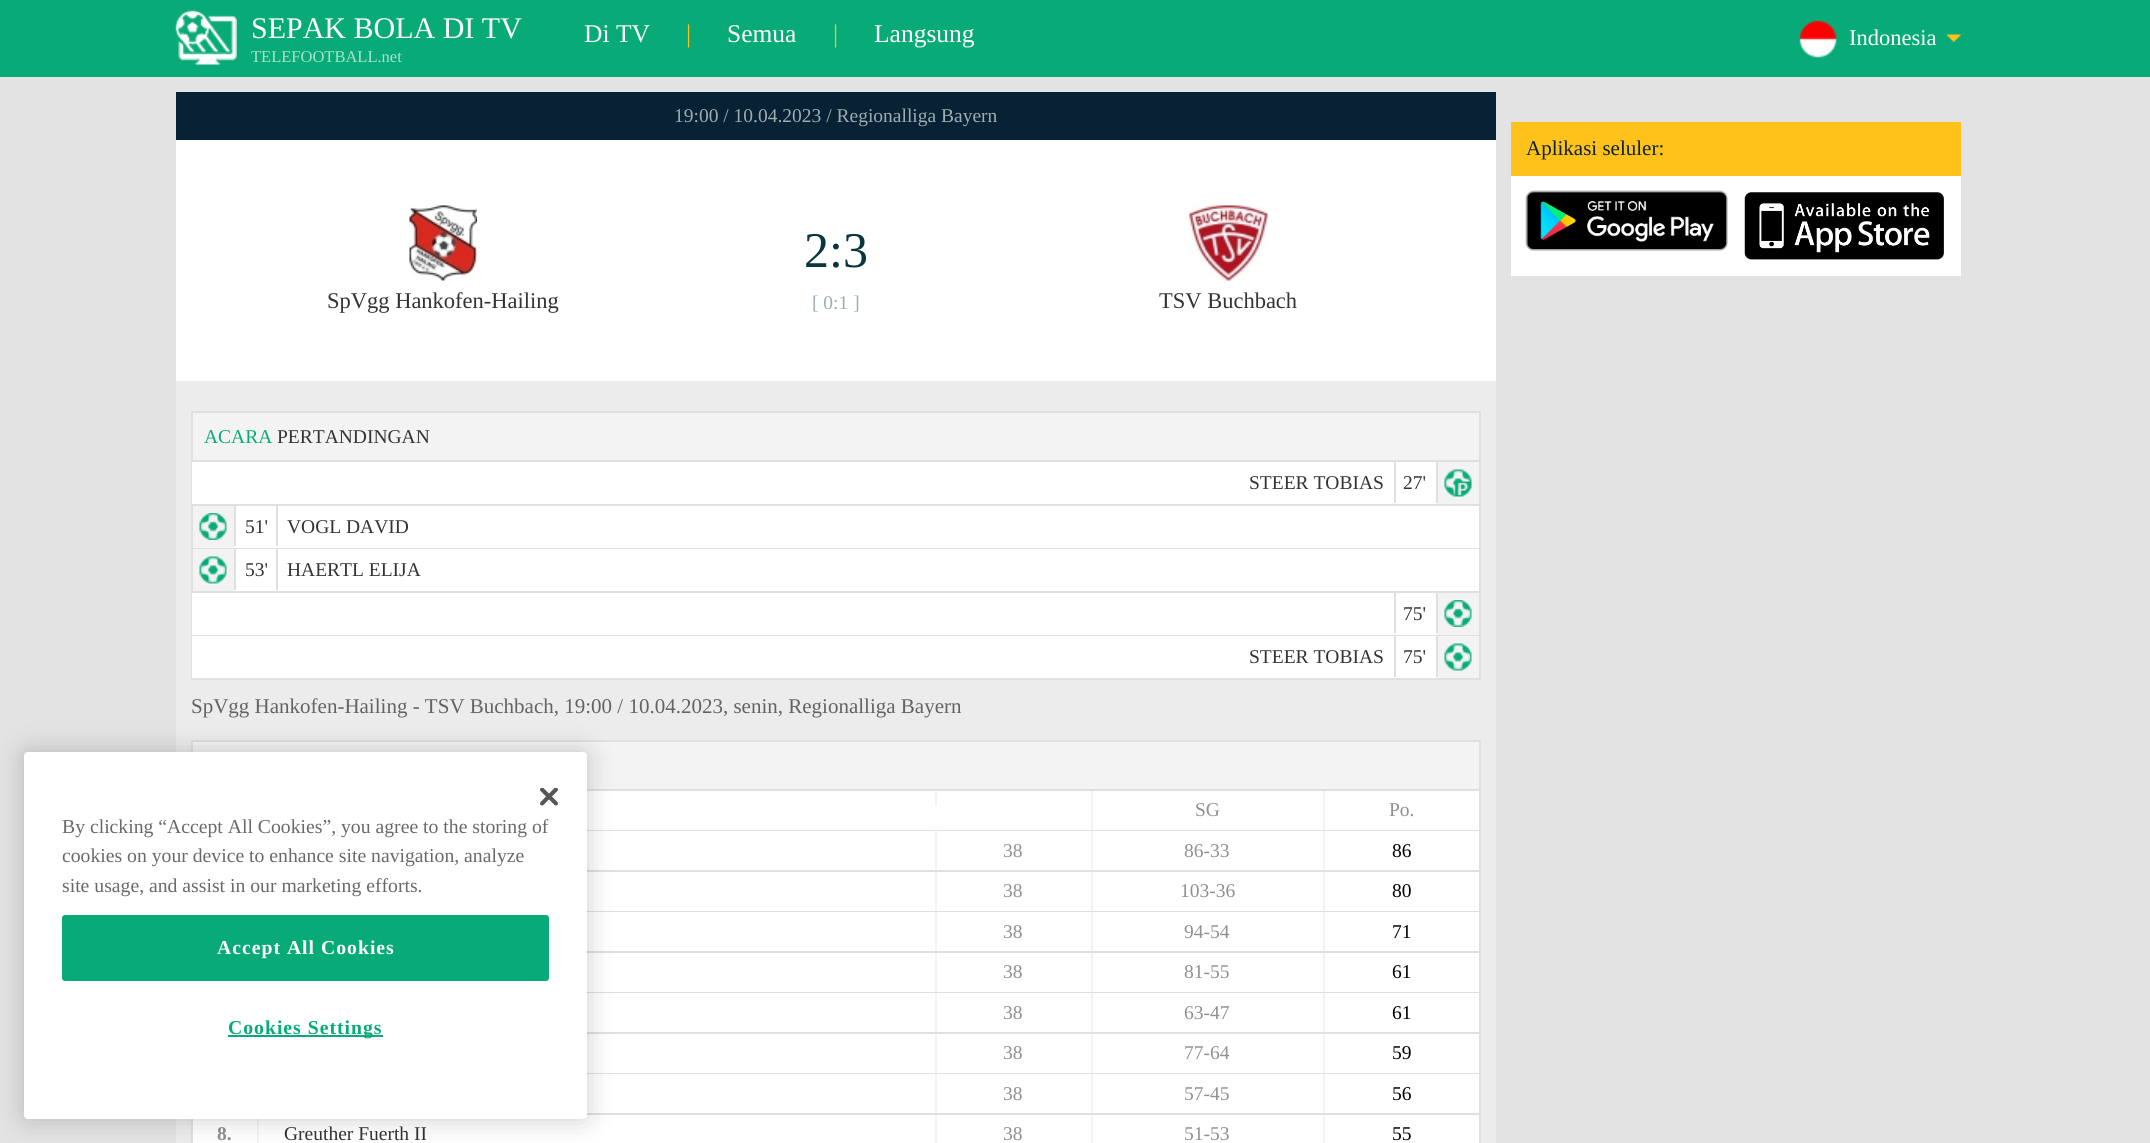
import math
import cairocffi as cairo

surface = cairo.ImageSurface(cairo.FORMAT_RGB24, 2150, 1143)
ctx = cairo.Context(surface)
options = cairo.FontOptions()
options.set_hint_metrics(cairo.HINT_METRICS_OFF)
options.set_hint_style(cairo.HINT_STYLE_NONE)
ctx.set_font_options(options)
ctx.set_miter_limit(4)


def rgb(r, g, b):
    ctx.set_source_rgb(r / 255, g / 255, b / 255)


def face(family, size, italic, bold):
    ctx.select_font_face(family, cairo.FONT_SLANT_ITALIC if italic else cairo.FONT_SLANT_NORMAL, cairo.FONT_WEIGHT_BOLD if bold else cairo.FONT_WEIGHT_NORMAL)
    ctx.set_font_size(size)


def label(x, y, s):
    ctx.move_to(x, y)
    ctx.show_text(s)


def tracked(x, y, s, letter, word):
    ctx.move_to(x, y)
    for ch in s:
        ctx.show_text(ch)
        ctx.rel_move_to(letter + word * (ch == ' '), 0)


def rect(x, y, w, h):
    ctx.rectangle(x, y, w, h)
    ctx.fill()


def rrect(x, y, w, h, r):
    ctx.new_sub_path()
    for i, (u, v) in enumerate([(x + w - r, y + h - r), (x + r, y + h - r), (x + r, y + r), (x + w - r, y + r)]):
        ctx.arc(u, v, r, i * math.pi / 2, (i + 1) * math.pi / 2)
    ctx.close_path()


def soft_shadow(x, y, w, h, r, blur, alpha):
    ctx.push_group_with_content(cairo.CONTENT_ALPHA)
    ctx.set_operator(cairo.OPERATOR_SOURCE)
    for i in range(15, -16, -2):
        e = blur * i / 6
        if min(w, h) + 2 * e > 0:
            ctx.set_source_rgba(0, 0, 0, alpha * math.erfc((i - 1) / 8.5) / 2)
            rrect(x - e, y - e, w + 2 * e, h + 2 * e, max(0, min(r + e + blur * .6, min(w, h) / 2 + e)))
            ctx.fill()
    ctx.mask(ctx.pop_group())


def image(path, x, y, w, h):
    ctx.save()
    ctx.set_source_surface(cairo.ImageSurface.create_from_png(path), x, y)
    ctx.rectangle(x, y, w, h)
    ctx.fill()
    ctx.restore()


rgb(227, 227, 227)
ctx.paint()
rgb(8, 170, 120)
rect(0, 0, 2150, 77)
image('image0.png', 175, 10, 62, 55)
face('Liberation Serif', 30, 0, 0)
rgb(255, 255, 255)
label(251, 38, 'SEPAK BOLA DI TV')
face('Liberation Serif', 16.5, 0, 0)
rgb(169, 225, 208)
label(251, 62, 'TELEFOOTBALL.net')
face('Liberation Serif', 25.5, 0, 0)
rgb(255, 255, 255)
label(584, 42, 'Di TV')
rgb(255, 194, 26)
label(686, 42, '|')
rgb(255, 255, 255)
label(727, 42, 'Semua')
rgb(255, 194, 26)
label(833, 42, '|')
rgb(255, 255, 255)
label(874, 42, 'Langsung')
image('image1.png', 1799, 20, 38, 38)
image('image2.png', 1946, 34, 15, 8)
face('Liberation Serif', 22.5, 0, 0)
label(1849, 45, 'Indonesia')
rect(176, 140, 1320, 241)
rgb(9, 33, 52)
rect(176, 92, 1320, 48)
face('Liberation Serif', 19.5, 0, 0)
rgb(156, 174, 178)
label(674, 122, '19:00 / 10.04.2023 / Regionalliga Bayern')
image('image3.png', 409, 205, 68, 76)
face('Liberation Serif', 22.5, 0, 0)
rgb(51, 51, 51)
label(327, 308, 'SpVgg Hankofen-Hailing')
face('Liberation Serif', 50, 0, 0)
rgb(9, 53, 63)
label(804, 267, '2:3')
face('Liberation Serif', 19.5, 0, 0)
rgb(156, 174, 178)
label(812, 309, '[ 0:1 ]')
image('image4.png', 1189, 205, 79, 76)
face('Liberation Serif', 22.5, 0, 0)
rgb(51, 51, 51)
label(1159, 308, 'TSV Buchbach')
rgb(236, 236, 236)
rect(176, 381, 1320, 762)
rgb(243, 243, 243)
ctx.rectangle(192, 412, 1288, 49)
ctx.fill_preserve()
rgb(224, 224, 224)
ctx.stroke()
face('Liberation Serif', 19.5, 0, 0)
rgb(8, 170, 120)
label(204, 443, 'ACARA')
rgb(51, 51, 51)
label(277, 443, 'PERTANDINGAN')
rgb(243, 243, 243)
rect(1437, 462, 42, 42)
rgb(224, 224, 224)
rect(1479, 462, 2, 218)
rect(191, 504, 1290, 2)
rect(191, 462, 2, 44)
image('image5.png', 1444, 469, 28, 28)
rgb(255, 255, 255)
rect(192, 462, 1245, 42)
rgb(51, 51, 51)
label(1249, 489, 'STEER TOBIAS')
rgb(224, 224, 224)
rect(1394, 462, 2, 41)
rgb(51, 51, 51)
label(1403, 489, '27\'')
rgb(224, 224, 224)
rect(1436, 462, 2, 41)
rgb(243, 243, 243)
rect(193, 506, 41, 42)
rgb(224, 224, 224)
rect(191, 548, 1290, 1)
rect(191, 506, 2, 43)
image('image6.png', 199, 513, 28, 27)
rgb(255, 255, 255)
rect(234, 506, 1245, 42)
rgb(51, 51, 51)
label(245, 533, '51\'')
rgb(224, 224, 224)
rect(234, 506, 2, 40)
rgb(51, 51, 51)
label(287, 533, 'VOGL DAVID')
rgb(224, 224, 224)
rect(276, 506, 2, 40)
rgb(243, 243, 243)
rect(193, 549, 41, 42)
rgb(224, 224, 224)
rect(191, 591, 1290, 2)
rect(191, 549, 2, 44)
image('image7.png', 199, 556, 28, 28)
rgb(255, 255, 255)
rect(234, 549, 1245, 42)
rgb(51, 51, 51)
label(245, 576, '53\'')
rgb(224, 224, 224)
rect(234, 549, 2, 41)
rgb(51, 51, 51)
label(287, 576, 'HAERTL ELIJA')
rgb(224, 224, 224)
rect(276, 549, 2, 41)
rgb(243, 243, 243)
rect(1437, 593, 42, 42)
rgb(224, 224, 224)
rect(191, 635, 1290, 1)
rect(191, 593, 2, 43)
image('image8.png', 1444, 600, 28, 27)
rgb(255, 255, 255)
rect(192, 593, 1245, 42)
rgb(224, 224, 224)
rect(1394, 593, 2, 40)
rgb(51, 51, 51)
label(1403, 620, '75\'')
rgb(224, 224, 224)
rect(1436, 593, 2, 40)
rgb(243, 243, 243)
rect(1437, 636, 42, 42)
rgb(224, 224, 224)
rect(191, 678, 1290, 2)
rect(191, 636, 2, 44)
image('image9.png', 1444, 643, 28, 28)
rgb(255, 255, 255)
rect(192, 636, 1245, 42)
rgb(51, 51, 51)
label(1249, 663, 'STEER TOBIAS')
rgb(224, 224, 224)
rect(1394, 636, 2, 41)
rgb(51, 51, 51)
label(1403, 663, '75\'')
rgb(224, 224, 224)
rect(1436, 636, 2, 41)
face('Liberation Serif', 21, 0, 0)
rgb(99, 99, 99)
label(191, 713, 'SpVgg Hankofen-Hailing - TSV Buchbach, 19:00 / 10.04.2023, senin, Regionalliga Bayern')
rgb(243, 243, 243)
ctx.rectangle(192, 741, 1288, 49)
ctx.fill_preserve()
rgb(224, 224, 224)
ctx.stroke()
rgb(255, 255, 255)
rect(587, 791, 892, 39)
rgb(224, 224, 224)
rect(1479, 791, 2, 352)
rect(587, 830, 894, 1)
rgb(243, 243, 243)
rect(935, 791, 2, 15)
rect(1091, 791, 2, 39)
face('Liberation Serif', 19.5, 0, 0)
rgb(144, 144, 144)
label(1195, 816, 'SG')
rgb(243, 243, 243)
rect(1323, 791, 2, 39)
rgb(144, 144, 144)
label(1389, 816, 'Po.')
rgb(255, 255, 255)
rect(587, 831, 892, 39)
rgb(224, 224, 224)
rect(587, 870, 894, 2)
rgb(243, 243, 243)
rect(935, 831, 2, 39)
rgb(144, 144, 144)
label(1003, 857, '38')
rgb(243, 243, 243)
rect(1091, 831, 2, 39)
rgb(144, 144, 144)
label(1184, 857, '86-33')
rgb(243, 243, 243)
rect(1323, 831, 2, 39)
rgb(0, 0, 0)
label(1392, 857, '86')
rgb(255, 255, 255)
rect(587, 872, 892, 39)
rgb(224, 224, 224)
rect(587, 911, 894, 1)
rgb(243, 243, 243)
rect(935, 872, 2, 39)
rgb(144, 144, 144)
label(1003, 897, '38')
rgb(243, 243, 243)
rect(1091, 872, 2, 39)
rgb(144, 144, 144)
label(1180, 897, '103-36')
rgb(243, 243, 243)
rect(1323, 872, 2, 39)
rgb(0, 0, 0)
label(1392, 897, '80')
rgb(255, 255, 255)
rect(587, 912, 892, 39)
rgb(224, 224, 224)
rect(587, 951, 894, 2)
rgb(243, 243, 243)
rect(935, 912, 2, 39)
rgb(144, 144, 144)
label(1003, 938, '38')
rgb(243, 243, 243)
rect(1091, 912, 2, 39)
rgb(144, 144, 144)
label(1184, 938, '94-54')
rgb(243, 243, 243)
rect(1323, 912, 2, 39)
rgb(0, 0, 0)
label(1392, 938, '71')
rgb(255, 255, 255)
rect(587, 953, 892, 39)
rgb(224, 224, 224)
rect(587, 992, 894, 1)
rgb(243, 243, 243)
rect(935, 953, 2, 39)
rgb(144, 144, 144)
label(1003, 978, '38')
rgb(243, 243, 243)
rect(1091, 953, 2, 39)
rgb(144, 144, 144)
label(1184, 978, '81-55')
rgb(243, 243, 243)
rect(1323, 953, 2, 39)
rgb(0, 0, 0)
label(1392, 978, '61')
rgb(255, 255, 255)
rect(587, 993, 892, 39)
rgb(224, 224, 224)
rect(587, 1032, 894, 2)
rgb(243, 243, 243)
rect(935, 993, 2, 39)
rgb(144, 144, 144)
label(1003, 1019, '38')
rgb(243, 243, 243)
rect(1091, 993, 2, 39)
rgb(144, 144, 144)
label(1184, 1019, '63-47')
rgb(243, 243, 243)
rect(1323, 993, 2, 39)
rgb(0, 0, 0)
label(1392, 1019, '61')
rgb(255, 255, 255)
rect(587, 1034, 892, 39)
rgb(224, 224, 224)
rect(587, 1073, 894, 1)
rgb(243, 243, 243)
rect(935, 1034, 2, 39)
rgb(144, 144, 144)
label(1003, 1059, '38')
rgb(243, 243, 243)
rect(1091, 1034, 2, 39)
rgb(144, 144, 144)
label(1184, 1059, '77-64')
rgb(243, 243, 243)
rect(1323, 1034, 2, 39)
rgb(0, 0, 0)
label(1392, 1059, '59')
rgb(255, 255, 255)
rect(587, 1074, 892, 39)
rgb(224, 224, 224)
rect(587, 1113, 894, 2)
rgb(243, 243, 243)
rect(935, 1074, 2, 39)
rgb(144, 144, 144)
label(1003, 1100, '38')
rgb(243, 243, 243)
rect(1091, 1074, 2, 39)
rgb(144, 144, 144)
label(1184, 1100, '57-45')
rgb(243, 243, 243)
rect(1323, 1074, 2, 39)
rgb(0, 0, 0)
label(1392, 1100, '56')
rgb(255, 255, 255)
rect(193, 1115, 1286, 28)
rgb(224, 224, 224)
rect(191, 1115, 2, 28)
rgb(243, 243, 243)
rect(257, 1115, 2, 28)
face('Liberation Serif', 19.5, 0, 1)
rgb(144, 144, 144)
label(217, 1140, '8.')
face('Liberation Serif', 19.5, 0, 0)
rgb(51, 51, 51)
label(284, 1140, 'Greuther Fuerth II')
rgb(243, 243, 243)
rect(935, 1115, 2, 28)
rgb(144, 144, 144)
label(1003, 1140, '38')
rgb(243, 243, 243)
rect(1091, 1115, 2, 28)
rgb(144, 144, 144)
label(1184, 1140, '51-53')
rgb(243, 243, 243)
rect(1323, 1115, 2, 28)
rgb(0, 0, 0)
label(1392, 1140, '55')
rgb(255, 194, 26)
rect(1511, 122, 450, 54)
face('Liberation Serif', 21, 0, 0)
rgb(9, 33, 52)
label(1526, 155, 'Aplikasi seluler:')
rgb(255, 255, 255)
rect(1511, 176, 450, 100)
image('image10.png', 1525, 190, 203, 61)
image('image11.png', 1744, 192, 200, 68)
rgb(0, 0, 0)
soft_shadow(24, 752, 563, 367, 4, 13.5, 0.2)
rgb(255, 255, 255)
rrect(24, 752, 563, 367, 4)
ctx.fill()
image('image12.png', 540, 788, 18, 18)
face('Liberation Serif', 19.7, 0, 0)
rgb(105, 105, 105)
label(62, 833, 'By clicking “Accept All Cookies”, you agree to the storing of')
label(62, 862, 'cookies on your device to enhance site navigation, analyze')
label(62, 892, 'site usage, and assist in our marketing efforts.')
rgb(8, 170, 120)
rrect(63, 916, 485, 64, 2)
ctx.fill_preserve()
ctx.stroke()
face('Liberation Serif', 19.7, 0, 1)
rgb(255, 255, 255)
tracked(217, 954, 'Accept All Cookies', 1, 0)
rgb(8, 170, 120)
rect(228, 1035, 155, 2)
tracked(228, 1034, 'Cookies Settings', 1, 0)
surface.write_to_png('render.png')
